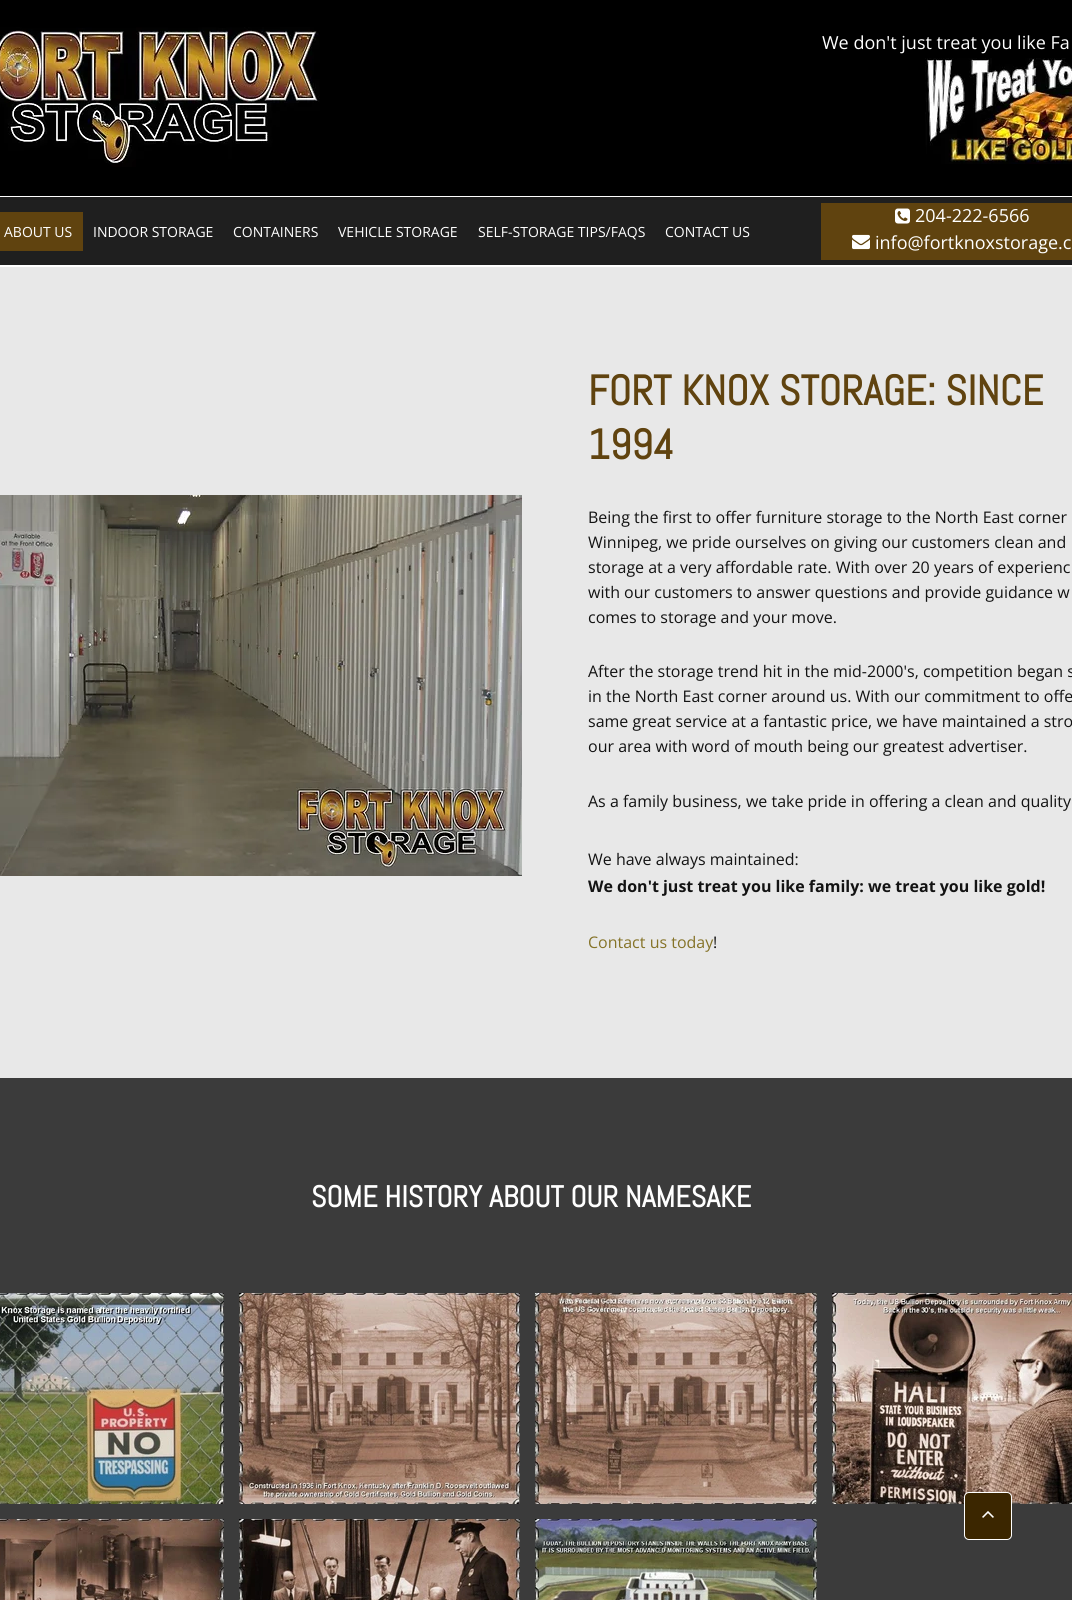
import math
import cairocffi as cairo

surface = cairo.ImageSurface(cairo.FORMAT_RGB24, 1072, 1600)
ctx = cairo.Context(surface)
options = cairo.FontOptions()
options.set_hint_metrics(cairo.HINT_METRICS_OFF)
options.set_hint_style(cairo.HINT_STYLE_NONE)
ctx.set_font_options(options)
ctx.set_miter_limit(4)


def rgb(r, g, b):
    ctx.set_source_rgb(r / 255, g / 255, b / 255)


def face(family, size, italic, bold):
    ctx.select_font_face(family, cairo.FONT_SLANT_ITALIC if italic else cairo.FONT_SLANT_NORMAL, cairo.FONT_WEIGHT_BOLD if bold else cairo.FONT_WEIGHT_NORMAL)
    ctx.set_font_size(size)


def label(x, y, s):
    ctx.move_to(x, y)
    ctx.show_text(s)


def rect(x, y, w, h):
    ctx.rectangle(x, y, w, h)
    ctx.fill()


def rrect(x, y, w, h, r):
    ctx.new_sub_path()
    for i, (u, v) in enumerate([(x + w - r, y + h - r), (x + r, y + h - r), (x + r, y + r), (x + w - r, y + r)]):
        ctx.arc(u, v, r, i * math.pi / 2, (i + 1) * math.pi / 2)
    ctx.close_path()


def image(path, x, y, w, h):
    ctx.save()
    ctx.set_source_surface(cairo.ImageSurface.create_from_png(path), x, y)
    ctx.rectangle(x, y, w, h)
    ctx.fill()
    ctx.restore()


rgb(31, 31, 31)
ctx.paint()
rgb(0, 0, 0)
rect(0, 0, 1072, 196)
image('image0.png', 0, 27, 320, 140)
face('Open Sans', 18, 0, 0)
rgb(255, 255, 255)
label(822, 49, 'We don\'t just treat you like Fa')
image('image1.png', 925, 58, 147, 106)
rect(0, 196, 1072, 1)
rgb(96, 67, 15)
rect(0, 212, 83, 39)
face('Open Sans', 14, 0, 0)
rgb(255, 255, 255)
label(4, 237, 'ABOUT US')
label(93, 237, 'INDOOR STORAGE')
label(233, 237, 'CONTAINERS')
label(338, 237, 'VEHICLE STORAGE')
label(478, 237, 'SELF-STORAGE TIPS/FAQS')
label(665, 237, 'CONTACT US')
rgb(96, 67, 15)
rect(821, 203, 251, 57)
image('image2.png', 895, 208, 15, 16)
face('Open Sans', 18, 0, 0)
rgb(255, 255, 255)
label(915, 222, '204-222-6566')
image('image3.png', 852, 234, 18, 16)
label(875, 249, 'info@fortknoxstorage.c')
rgb(232, 232, 232)
rect(0, 267, 1072, 811)
rgb(255, 255, 255)
rect(0, 265, 1072, 2)
image('image4.png', 0, 495, 522, 381)
face('Abel', 42, 0, 1)
rgb(96, 67, 15)
label(588, 405, 'FORT KNOX STORAGE: SINCE')
label(588, 459, '1994')
face('Open Sans', 16, 0, 0)
rgb(19, 19, 19)
label(588, 523, 'Being the first to offer furniture storage to the North East corner')
label(588, 548, 'Winnipeg, we pride ourselves on giving our customers clean and')
label(588, 573, 'storage at a very affordable rate. With over 20 years of experienc')
label(588, 598, 'with our customers to answer questions and provide guidance w')
label(588, 623, 'comes to storage and your move.')
label(588, 677, 'After the storage trend hit in the mid-2000\'s, competition began s')
label(588, 702, 'in the North East corner around us. With our commitment to offe')
label(588, 727, 'same great service at a fantastic price, we have maintained a stro')
label(588, 752, 'our area with word of mouth being our greatest advertiser.')
label(588, 807, 'As a family business, we take pride in offering a clean and quality')
label(588, 865, 'We have always maintained:')
face('Open Sans', 16, 0, 1)
label(588, 892, 'We don\'t just treat you like family: we treat you like gold!')
face('Open Sans', 16, 0, 0)
rgb(133, 115, 40)
label(588, 948, 'Contact us today')
rgb(19, 19, 19)
label(713, 948, '!')
rgb(59, 59, 59)
rect(0, 1078, 1072, 522)
face('Abel', 30, 0, 1)
rgb(255, 255, 255)
label(311, 1207, 'SOME HISTORY ABOUT OUR NAMESAKE')
image('image5.png', 0, 1293, 224, 211)
image('image6.png', 239, 1293, 281, 211)
image('image7.png', 535, 1293, 282, 211)
image('image8.png', 832, 1293, 240, 211)
image('image9.png', 0, 1519, 224, 81)
image('image10.png', 239, 1519, 281, 81)
image('image11.png', 535, 1519, 282, 81)
rgb(59, 38, 0)
rrect(964.5, 1492.5, 47, 47, 4.5)
ctx.fill_preserve()
rgb(255, 255, 255)
ctx.set_line_width(1)
ctx.stroke()
image('image12.png', 982, 1511, 12, 7)
surface.write_to_png('render.png')
